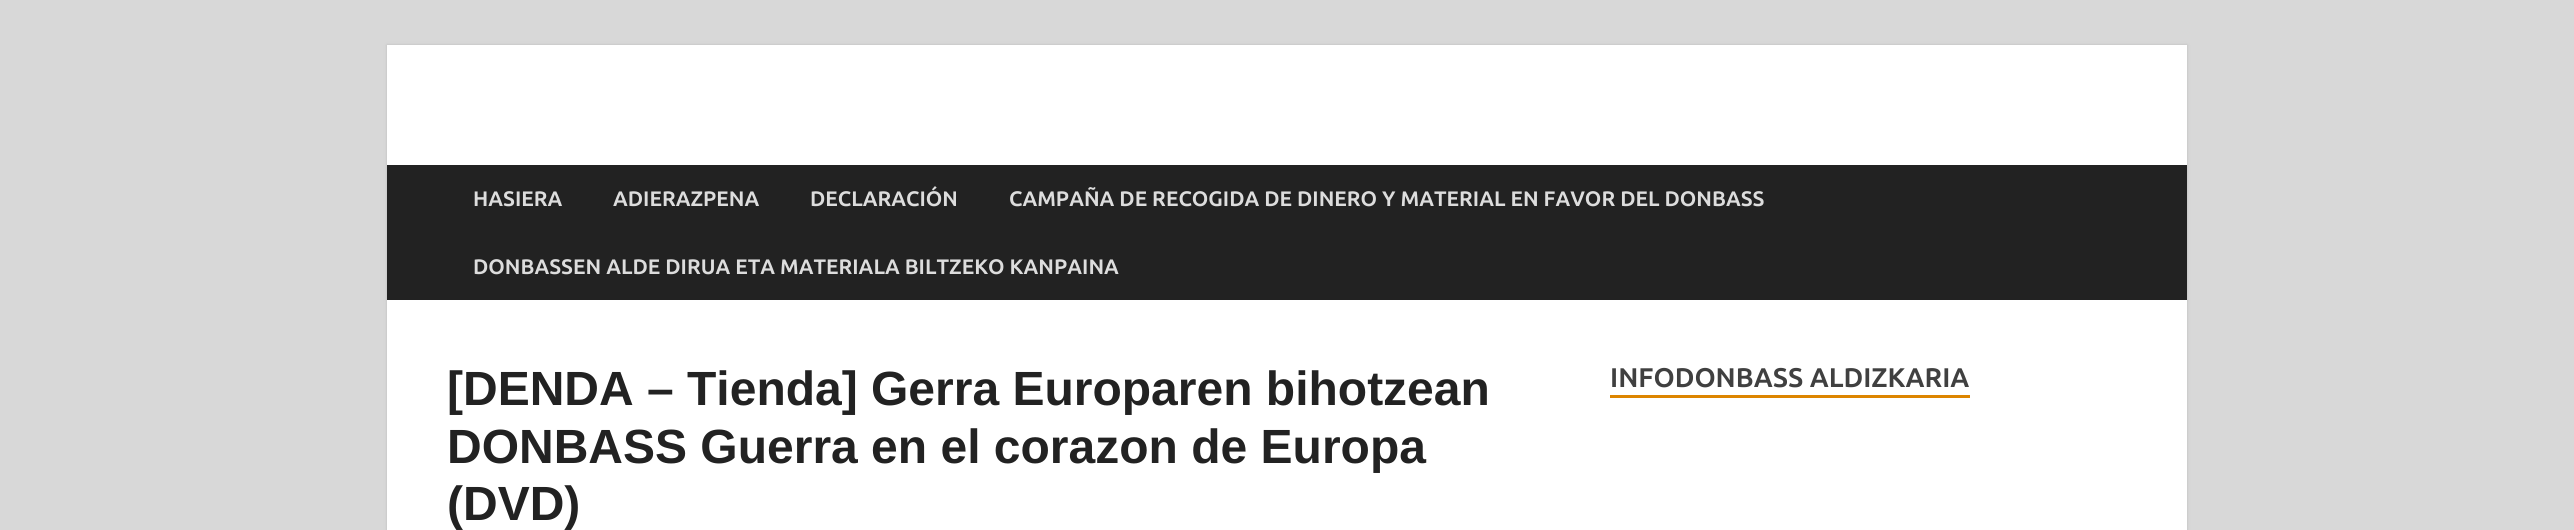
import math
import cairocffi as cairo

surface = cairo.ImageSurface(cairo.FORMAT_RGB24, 2574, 530)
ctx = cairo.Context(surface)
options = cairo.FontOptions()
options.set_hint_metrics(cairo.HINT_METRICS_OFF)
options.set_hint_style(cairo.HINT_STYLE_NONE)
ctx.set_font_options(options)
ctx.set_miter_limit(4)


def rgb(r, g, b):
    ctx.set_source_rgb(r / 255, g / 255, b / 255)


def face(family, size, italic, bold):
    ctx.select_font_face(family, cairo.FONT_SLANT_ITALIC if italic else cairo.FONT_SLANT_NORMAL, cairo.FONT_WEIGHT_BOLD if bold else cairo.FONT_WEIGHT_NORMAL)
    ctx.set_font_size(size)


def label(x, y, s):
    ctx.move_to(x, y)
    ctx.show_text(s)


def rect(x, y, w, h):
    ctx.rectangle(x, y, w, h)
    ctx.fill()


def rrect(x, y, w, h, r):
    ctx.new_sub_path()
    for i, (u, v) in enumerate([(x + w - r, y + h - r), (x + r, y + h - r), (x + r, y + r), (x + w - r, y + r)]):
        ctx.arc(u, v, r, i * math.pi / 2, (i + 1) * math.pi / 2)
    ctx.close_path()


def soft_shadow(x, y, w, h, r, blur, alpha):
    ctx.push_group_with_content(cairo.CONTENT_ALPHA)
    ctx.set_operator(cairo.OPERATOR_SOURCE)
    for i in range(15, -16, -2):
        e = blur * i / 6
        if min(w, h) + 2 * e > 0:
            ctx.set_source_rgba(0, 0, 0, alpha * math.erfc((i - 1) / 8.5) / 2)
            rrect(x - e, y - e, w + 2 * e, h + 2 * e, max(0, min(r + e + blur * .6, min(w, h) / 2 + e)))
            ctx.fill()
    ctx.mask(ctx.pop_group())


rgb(216, 216, 216)
ctx.paint()
rgb(187, 187, 187)
soft_shadow(387, 45, 1800, 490, 0, 1.5, 1)
rgb(255, 255, 255)
rect(387, 45, 1800, 485)
rgb(34, 34, 34)
rect(387, 165, 1800, 135)
face('Ubuntu', 21, 0, 1)
rgb(221, 221, 221)
label(473, 206, 'HASIERA')
label(613, 206, 'ADIERAZPENA')
label(810, 206, 'DECLARACIÓN')
label(1009, 206, 'CAMPAÑA DE RECOGIDA DE DINERO Y MATERIAL EN FAVOR DEL DONBASS')
label(473, 274, 'DONBASSEN ALDE DIRUA ETA MATERIALA BILTZEKO KANPAINA')
face('Liberation Sans', 48, 0, 1)
rgb(34, 34, 34)
label(447, 405, '[DENDA – Tienda] Gerra Europaren bihotzean')
label(447, 463, 'DONBASS Guerra en el corazon de Europa')
label(447, 520, '(DVD)')
rgb(221, 133, 0)
rect(1610, 395, 360, 3)
face('Ubuntu', 27, 0, 1)
rgb(64, 64, 64)
label(1610, 387, 'INFODONBASS ALDIZKARIA')
surface.write_to_png('render.png')
